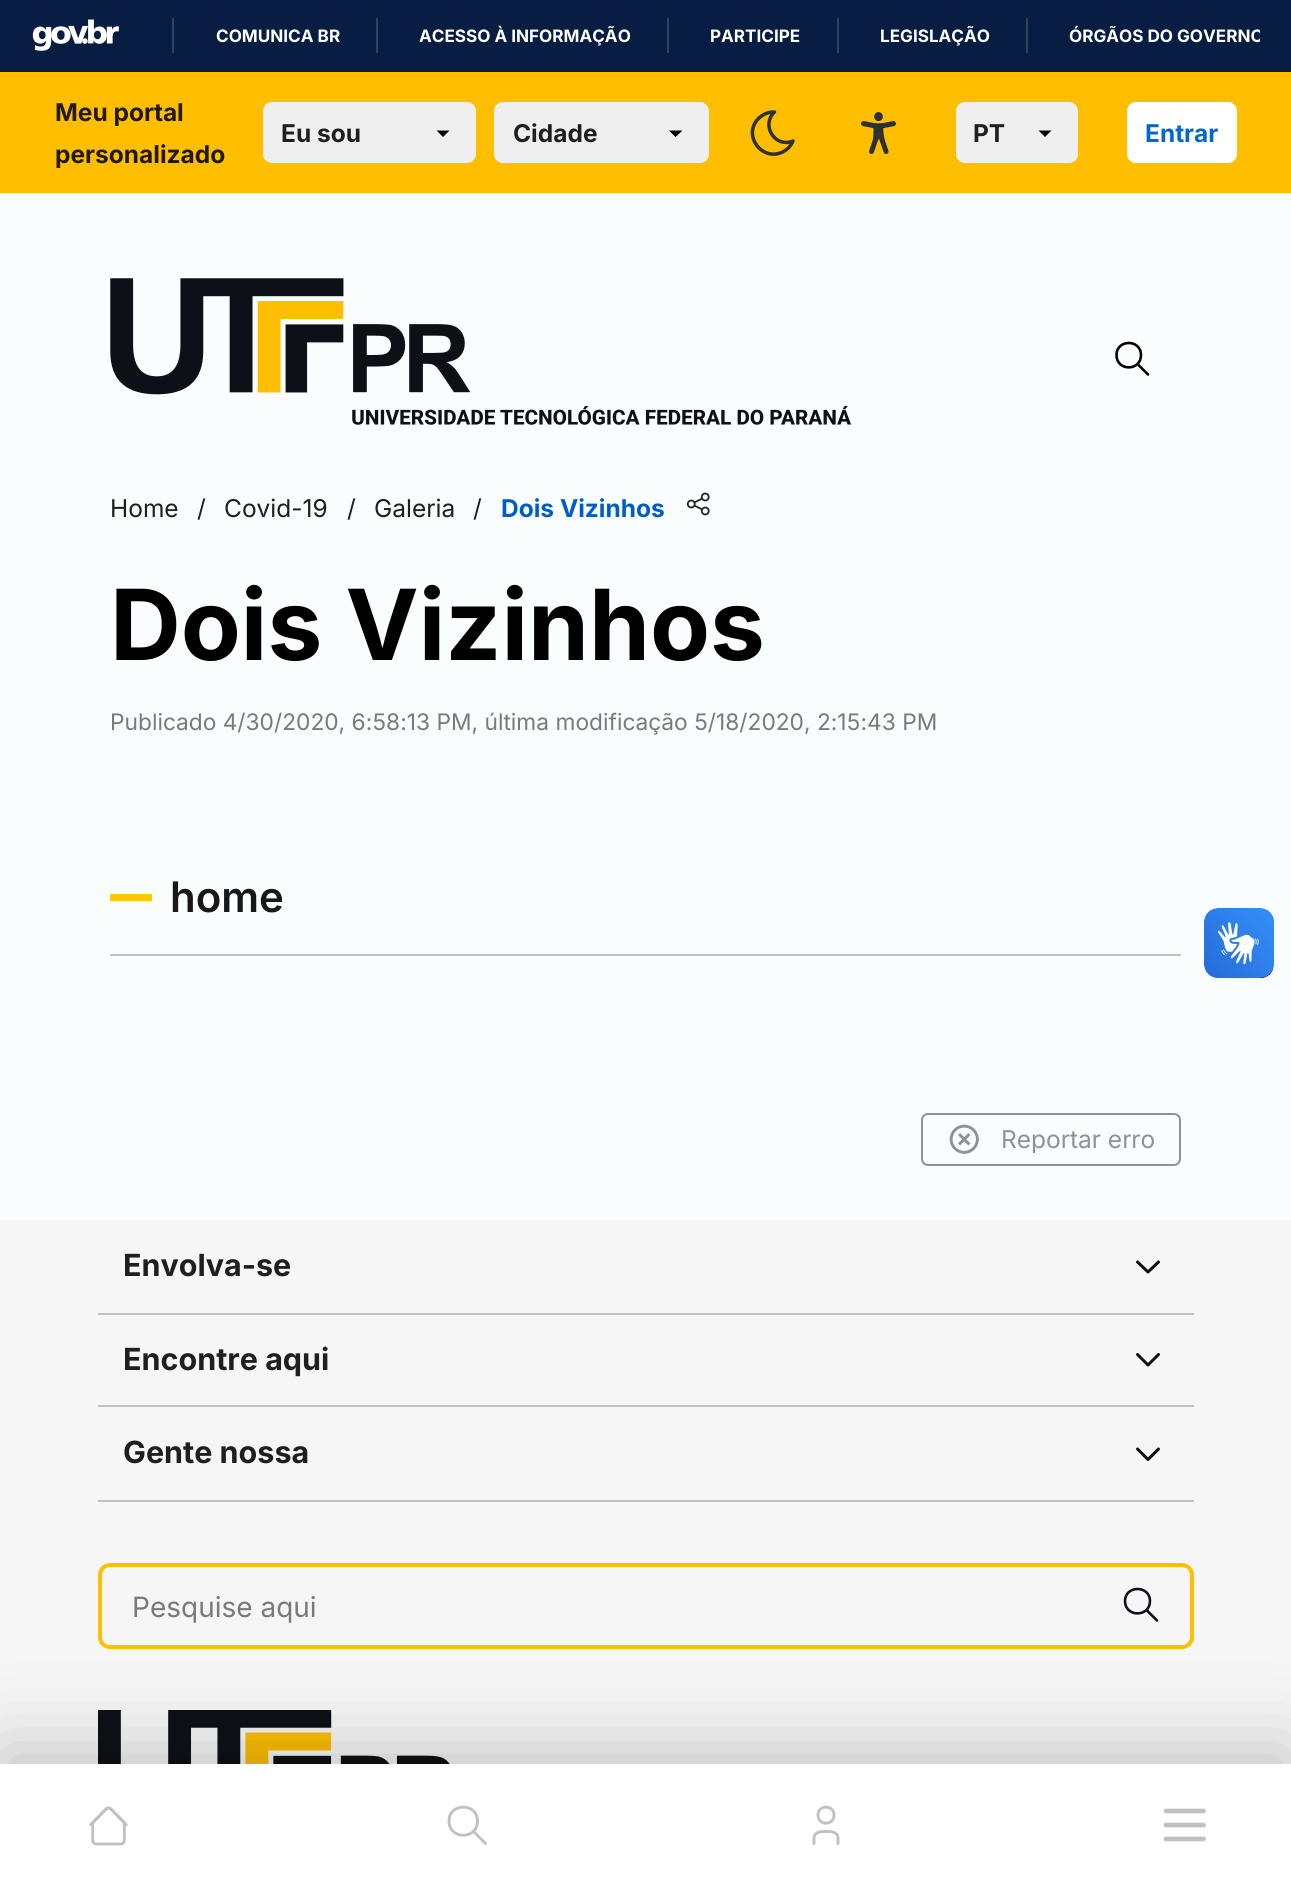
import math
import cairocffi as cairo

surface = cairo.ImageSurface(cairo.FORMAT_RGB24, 1291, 1885)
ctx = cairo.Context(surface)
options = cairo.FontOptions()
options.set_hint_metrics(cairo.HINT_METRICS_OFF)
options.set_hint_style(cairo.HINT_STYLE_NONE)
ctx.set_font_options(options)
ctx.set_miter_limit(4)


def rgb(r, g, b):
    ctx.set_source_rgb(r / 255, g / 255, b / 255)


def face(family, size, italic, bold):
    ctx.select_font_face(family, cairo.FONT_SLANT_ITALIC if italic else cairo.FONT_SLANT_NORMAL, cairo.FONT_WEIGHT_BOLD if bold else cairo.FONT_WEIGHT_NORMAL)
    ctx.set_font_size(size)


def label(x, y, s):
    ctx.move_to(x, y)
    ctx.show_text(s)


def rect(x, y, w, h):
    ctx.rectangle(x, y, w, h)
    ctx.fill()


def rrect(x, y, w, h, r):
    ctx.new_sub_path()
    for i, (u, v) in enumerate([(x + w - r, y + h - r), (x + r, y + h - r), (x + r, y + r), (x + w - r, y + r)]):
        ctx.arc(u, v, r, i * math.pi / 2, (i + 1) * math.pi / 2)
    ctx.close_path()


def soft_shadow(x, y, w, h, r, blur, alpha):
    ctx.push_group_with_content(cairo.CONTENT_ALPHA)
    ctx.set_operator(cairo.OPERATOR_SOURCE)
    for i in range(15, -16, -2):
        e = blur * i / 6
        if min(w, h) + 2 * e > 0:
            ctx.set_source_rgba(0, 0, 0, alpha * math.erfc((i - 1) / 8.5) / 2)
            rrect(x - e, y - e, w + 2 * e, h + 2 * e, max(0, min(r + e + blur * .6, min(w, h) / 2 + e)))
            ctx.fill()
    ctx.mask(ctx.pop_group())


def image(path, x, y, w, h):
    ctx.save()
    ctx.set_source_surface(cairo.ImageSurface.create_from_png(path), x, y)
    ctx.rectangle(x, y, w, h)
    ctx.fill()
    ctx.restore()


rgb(250, 253, 253)
ctx.paint()
rgb(7, 29, 65)
rect(0, 0, 1291, 72)
image('image0.png', 32, 19, 87, 32)
rgb(50, 66, 91)
rect(172, 18, 2, 35)
face('Inter', 17.1, 0, 1)
rgb(255, 255, 255)
label(216, 42, 'COMUNICA BR')
rgb(50, 66, 91)
rect(376, 18, 2, 35)
rgb(255, 255, 255)
label(419, 42, 'ACESSO À INFORMAÇÃO')
rgb(50, 66, 91)
rect(667, 18, 2, 35)
rgb(255, 255, 255)
label(710, 42, 'PARTICIPE')
rgb(50, 66, 91)
rect(837, 18, 2, 35)
rgb(255, 255, 255)
label(880, 42, 'LEGISLAÇÃO')
rgb(50, 66, 91)
rect(1026, 18, 2, 35)
ctx.save()
ctx.rectangle(137, 12, 1123, 46)
ctx.clip()
rgb(255, 255, 255)
label(1069, 42, 'ÓRGÃOS DO GOVERNO')
ctx.restore()
rgb(255, 190, 0)
rect(0, 72, 1291, 121)
face('Inter', 24.5, 0, 1)
rgb(33, 25, 0)
label(55, 121, 'Meu portal')
label(55, 163, 'personalizado')
rgb(239, 239, 239)
rrect(263, 102, 213, 61, 9)
ctx.fill()
rgb(0, 0, 0)
ctx.new_path()
ctx.move_to(436.5, 130.5)
ctx.line_to(443, 137)
ctx.line_to(449.5, 130.5)
ctx.fill()
rgb(31, 31, 31)
label(281, 142, 'Eu sou')
rgb(239, 239, 239)
rrect(494, 102, 215, 61, 9)
ctx.fill()
rgb(0, 0, 0)
ctx.new_path()
ctx.move_to(669, 130.5)
ctx.line_to(675.5, 137)
ctx.line_to(682.5, 130.5)
ctx.fill()
rgb(31, 31, 31)
label(513, 142, 'Cidade')
ctx.new_path()
ctx.move_to(773.5, 112)
ctx.line_to(774.5, 112)
ctx.curve_to(760.5, 125, 775, 148.5, 793, 141)
ctx.curve_to(791, 145.5, 788, 149, 783.5, 151.5)
ctx.curve_to(763.5, 162.5, 742.5, 137, 757.5, 119.5)
ctx.curve_to(761.5, 115, 767.5, 112, 773.5, 112)
ctx.close_path()
rgb(46, 49, 50)
ctx.set_line_width(3.5)
ctx.set_line_cap(cairo.LINE_CAP_ROUND)
ctx.set_line_join(cairo.LINE_JOIN_ROUND)
ctx.stroke()
image('image1.png', 861, 112, 35, 42)
rgb(239, 239, 239)
rrect(956, 102, 122, 61, 9)
ctx.fill()
rgb(0, 0, 0)
ctx.new_path()
ctx.move_to(1038.5, 130.5)
ctx.line_to(1045, 137)
ctx.line_to(1051.5, 130.5)
ctx.fill()
rgb(31, 31, 31)
label(973, 142, 'PT')
rgb(255, 255, 255)
rrect(1127, 102, 110, 61, 9)
ctx.fill()
rgb(1, 105, 205)
label(1145, 142, 'Entrar')
image('image2.png', 110, 278, 741, 147)
ctx.new_path()
ctx.move_to(1148, 374.5)
ctx.line_to(1137.5, 364)
ctx.move_to(1116.5, 355)
ctx.curve_to(1116.5, 371.5, 1141, 371.5, 1141, 355)
ctx.curve_to(1141, 339, 1116.5, 339, 1116.5, 355)
ctx.close_path()
rgb(0, 0, 0)
ctx.set_line_width(2.6)
ctx.stroke()
rgb(246, 246, 246)
rect(0, 1220, 1291, 544)
rrect(100, 1565, 1092, 82, 10)
rgb(255, 190, 0)
ctx.set_line_width(4)
ctx.set_line_cap(cairo.LINE_CAP_BUTT)
ctx.set_line_join(cairo.LINE_JOIN_MITER)
ctx.stroke()
image('image6.png', 98, 1710, 352, 54)
rgb(0, 0, 0)
soft_shadow(0, 1747, 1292, 122, 0, 39.5, 0.2)
rgb(255, 255, 255)
rect(0, 1764, 1291, 121)
image('image3.png', 89, 1806, 39, 40)
ctx.new_path()
ctx.move_to(485.5, 1843.5)
ctx.line_to(473.5, 1831.5)
ctx.move_to(449, 1821)
ctx.curve_to(449, 1840, 477.5, 1840, 477.5, 1821)
ctx.curve_to(477.5, 1802.5, 449, 1802.5, 449, 1821)
ctx.close_path()
rgb(193, 193, 193)
ctx.set_line_width(2.9)
ctx.set_line_cap(cairo.LINE_CAP_ROUND)
ctx.set_line_join(cairo.LINE_JOIN_ROUND)
ctx.stroke()
ctx.new_path()
ctx.move_to(814, 1843.5)
ctx.line_to(814, 1837.5)
ctx.curve_to(815, 1831.5, 821, 1831.5, 826, 1831.5)
ctx.curve_to(831, 1831.5, 837, 1831.5, 838, 1837.5)
ctx.line_to(838, 1843.5)
ctx.move_to(818, 1815)
ctx.curve_to(818, 1826, 834, 1826, 834, 1815)
ctx.curve_to(834, 1804.5, 818, 1804.5, 818, 1815)
ctx.close_path()
ctx.stroke()
ctx.new_path()
ctx.move_to(1166, 1839)
ctx.line_to(1203.5, 1839)
ctx.move_to(1166, 1825)
ctx.line_to(1203.5, 1825)
ctx.move_to(1166, 1811)
ctx.line_to(1203.5, 1811)
ctx.set_line_width(4.7)
ctx.set_line_join(cairo.LINE_JOIN_MITER)
ctx.stroke()
face('Inter', 24.5, 0, 0)
rgb(31, 31, 31)
label(110, 517, 'Home')
label(197, 517, '/')
label(224, 517, 'Covid-19')
label(347, 517, '/')
label(374, 517, 'Galeria')
label(473, 517, '/')
face('Inter', 24.5, 0, 1)
rgb(0, 93, 197)
label(501, 517, 'Dois Vizinhos')
image('image4.png', 686, 492, 24, 24)
face('Inter', 98, 0, 1)
rgb(0, 0, 0)
label(110, 660, 'Dois Vizinhos')
face('Inter', 22.75, 0, 0)
rgb(122, 122, 122)
label(110, 730, 'Publicado 4/30/2020, 6:58:13 PM, última modificação 5/18/2020, 2:15:43 PM')
rgb(255, 200, 0)
rect(110, 894, 42, 7)
face('Inter SemiBold', 42, 0, 0)
rgb(24, 24, 26)
label(170, 912, 'home')
rgb(193, 193, 193)
rect(110, 954, 1071, 2)
rrect(922, 1114, 258, 51, 6)
rgb(141, 145, 153)
ctx.set_line_width(2)
ctx.set_line_cap(cairo.LINE_CAP_BUTT)
ctx.stroke()
image('image5.png', 949, 1124, 30, 30)
face('Inter', 24.5, 0, 0)
label(1001, 1148, 'Reportar erro')
rgb(193, 193, 193)
rect(98, 1313, 1096, 2)
face('Inter', 30.5, 0, 1)
rgb(31, 31, 31)
label(123, 1276, 'Envolva-se')
ctx.new_path()
ctx.move_to(1137.5, 1262)
ctx.line_to(1148, 1272)
ctx.line_to(1158.5, 1262)
rgb(13, 17, 23)
ctx.set_line_width(3)
ctx.set_line_cap(cairo.LINE_CAP_ROUND)
ctx.set_line_join(cairo.LINE_JOIN_ROUND)
ctx.stroke()
rgb(193, 193, 193)
rect(98, 1405, 1096, 2)
rgb(31, 31, 31)
label(123, 1370, 'Encontre aqui')
ctx.new_path()
ctx.move_to(1137.5, 1354.5)
ctx.line_to(1148, 1365)
ctx.line_to(1158.5, 1354.5)
rgb(13, 17, 23)
ctx.stroke()
rgb(193, 193, 193)
rect(98, 1500, 1096, 2)
rgb(31, 31, 31)
label(123, 1463, 'Gente nossa')
ctx.new_path()
ctx.move_to(1137.5, 1449)
ctx.line_to(1148, 1459.5)
ctx.line_to(1158.5, 1449)
rgb(13, 17, 23)
ctx.stroke()
face('Inter', 28, 0, 0)
rgb(122, 122, 122)
label(132, 1617, 'Pesquise aqui')
ctx.new_path()
ctx.move_to(1157, 1620.5)
ctx.line_to(1146.5, 1610)
ctx.move_to(1125, 1601)
ctx.curve_to(1125, 1617.5, 1150, 1617.5, 1150, 1601)
ctx.curve_to(1150, 1585, 1125, 1585, 1125, 1601)
ctx.close_path()
rgb(13, 17, 23)
ctx.set_line_width(2.6)
ctx.stroke()
image('image7.png', 1204, 908, 70, 71)
image('image8.png', 1204, 908, 70, 70)
surface.write_to_png('render.png')
